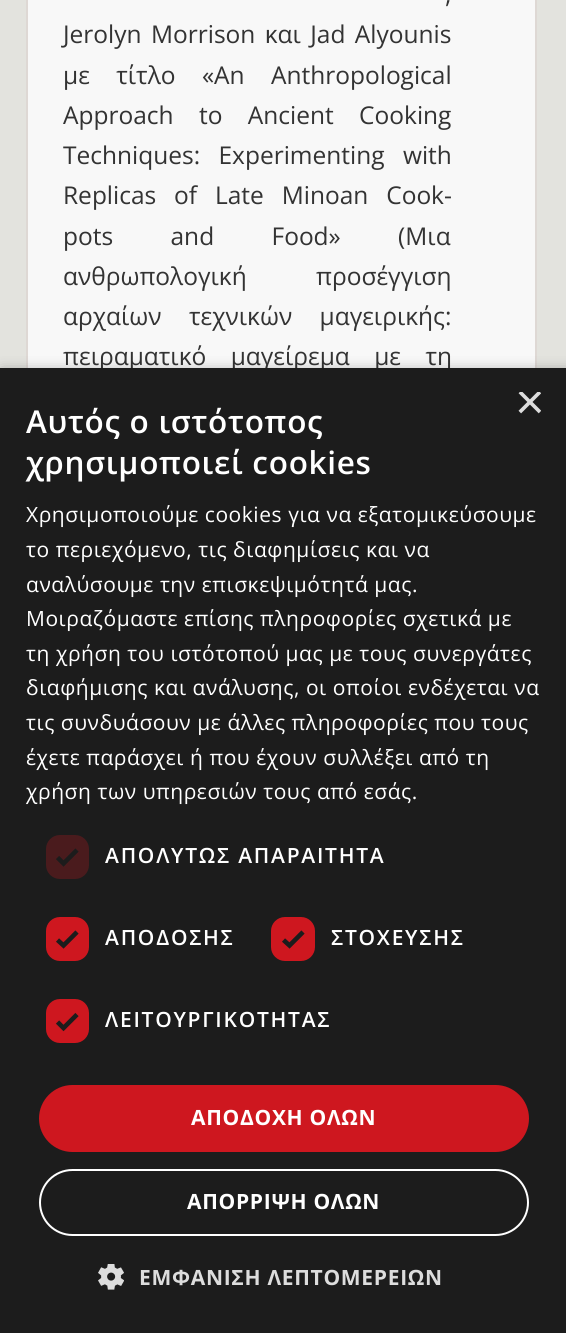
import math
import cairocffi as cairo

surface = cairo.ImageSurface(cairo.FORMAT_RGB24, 566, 1333)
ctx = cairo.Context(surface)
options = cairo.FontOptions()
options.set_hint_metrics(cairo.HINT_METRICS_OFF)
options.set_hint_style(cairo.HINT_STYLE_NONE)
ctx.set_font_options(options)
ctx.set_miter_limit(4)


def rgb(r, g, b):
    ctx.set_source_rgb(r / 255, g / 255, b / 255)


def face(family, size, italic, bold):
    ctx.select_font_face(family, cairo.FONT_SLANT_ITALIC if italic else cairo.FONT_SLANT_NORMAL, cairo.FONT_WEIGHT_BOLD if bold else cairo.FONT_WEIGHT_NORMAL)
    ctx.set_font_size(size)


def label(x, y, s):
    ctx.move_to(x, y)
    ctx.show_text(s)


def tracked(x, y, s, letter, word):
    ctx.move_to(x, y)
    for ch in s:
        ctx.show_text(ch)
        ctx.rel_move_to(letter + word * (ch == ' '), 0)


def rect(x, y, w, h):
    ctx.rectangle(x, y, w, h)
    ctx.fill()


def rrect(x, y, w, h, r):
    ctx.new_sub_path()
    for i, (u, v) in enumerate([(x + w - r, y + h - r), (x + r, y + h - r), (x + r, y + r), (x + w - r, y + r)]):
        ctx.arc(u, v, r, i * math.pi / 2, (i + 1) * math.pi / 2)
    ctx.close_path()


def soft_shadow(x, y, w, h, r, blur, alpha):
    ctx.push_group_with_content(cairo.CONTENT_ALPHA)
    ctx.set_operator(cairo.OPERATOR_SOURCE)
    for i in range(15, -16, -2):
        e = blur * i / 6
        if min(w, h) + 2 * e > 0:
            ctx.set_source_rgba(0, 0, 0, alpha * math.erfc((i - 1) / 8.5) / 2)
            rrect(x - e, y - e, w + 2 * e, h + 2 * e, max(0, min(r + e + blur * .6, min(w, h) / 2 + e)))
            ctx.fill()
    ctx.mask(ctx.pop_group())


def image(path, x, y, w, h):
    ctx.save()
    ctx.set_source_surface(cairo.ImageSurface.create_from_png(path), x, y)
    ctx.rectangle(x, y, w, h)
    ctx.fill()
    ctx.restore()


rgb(227, 227, 222)
ctx.paint()
rgb(248, 248, 248)
rect(28, 0, 507, 368)
ctx.rectangle(27, -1, 509, 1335)
rgb(222, 216, 212)
ctx.stroke()
face('Open Sans', 24.5, 0, 0)
rgb(51, 51, 51)
tracked(445, 3, ',', 0, 2)
tracked(63, 43, 'Jerolyn Morrison και Jad Alyounis', 0, 3)
tracked(63, 84, 'με τίτλο «An Anthropological', 0, 20)
tracked(63, 124, 'Approach to Ancient Cooking', 0, 19)
tracked(63, 164, 'Techniques: Experimenting with', 0, 12)
tracked(63, 204, 'Replicas of Late Minoan Cook-', 0, 11.5)
tracked(63, 245, 'pots and Food» (Μια', 0, 51)
tracked(63, 285, 'ανθρωπολογική προσέγγιση', 0, 63)
tracked(63, 325, 'αρχαίων τεχνικών μαγειρικής:', 0, 21)
tracked(63, 365, 'πειραματικό μαγείρεμα με τη', 0, 18)
rgb(0, 0, 0)
soft_shadow(2, 371, 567, 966, 0, 7, 0.35)
rgb(28, 28, 28)
rect(0, 368, 566, 965)
ctx.save()
ctx.rectangle(515, 392, 26, 26)
ctx.clip()
face('Liberation Sans', 51, 0, 0)
rgb(221, 221, 221)
label(515, 419, '×')
ctx.restore()
face('Open Sans SemiBold', 31.5, 0, 0)
rgb(255, 255, 255)
tracked(26, 433, 'Αυτός ο ιστότοπος', 0.7, 0)
tracked(26, 474, 'χρησιμοποιεί cookies', 0.7, 0)
face('Open Sans', 21, 0, 0)
tracked(26, 522, 'Χρησιμοποιούμε cookies για να εξατομικεύσουμε', 0.55, 0)
tracked(26, 557, 'το περιεχόμενο, τις διαφημίσεις και να', 0.55, 0)
tracked(26, 592, 'αναλύσουμε την επισκεψιμότητά μας.', 0.55, 0)
tracked(26, 626, 'Μοιραζόμαστε επίσης πληροφορίες σχετικά με', 0.55, 0)
tracked(26, 661, 'τη χρήση του ιστότοπού μας με τους συνεργάτες', 0.55, 0)
tracked(26, 695, 'διαφήμισης και ανάλυσης, οι οποίοι ενδέχεται να', 0.55, 0)
tracked(26, 730, 'τις συνδυάσουν με άλλες πληροφορίες που τους', 0.55, 0)
tracked(26, 765, 'έχετε παράσχει ή που έχουν συλλέξει από τη', 0.55, 0)
tracked(26, 799, 'χρήση των υπηρεσιών τους από εσάς.', 0.55, 0)
rgb(74, 27, 29)
rrect(46, 835, 43, 44, 14)
ctx.fill()
ctx.new_path()
ctx.move_to(57.5, 857.5)
ctx.line_to(63.5, 863.5)
ctx.line_to(77, 850)
rgb(28, 28, 28)
ctx.set_line_width(4.6)
ctx.stroke()
face('Open Sans SemiBold', 21, 0, 0)
rgb(255, 255, 255)
tracked(105, 863, 'ΑΠΟΛΥΤΩΣ ΑΠΑΡΑΙΤΗΤΑ', 1.75, 0)
rgb(206, 23, 31)
rrect(48, 919, 39, 40, 12)
ctx.fill_preserve()
ctx.set_line_width(4)
ctx.stroke()
ctx.new_path()
ctx.move_to(57.5, 940)
ctx.line_to(63.5, 945.5)
ctx.line_to(77, 932)
rgb(28, 28, 28)
ctx.set_line_width(4.6)
ctx.stroke()
rgb(255, 255, 255)
tracked(105, 945, 'ΑΠΟΔΟΣΗΣ', 1.75, 0)
rgb(206, 23, 31)
rrect(273, 919, 40, 40, 12)
ctx.fill_preserve()
ctx.set_line_width(4)
ctx.stroke()
ctx.new_path()
ctx.move_to(283.5, 940)
ctx.line_to(289.5, 945.5)
ctx.line_to(303, 932)
rgb(28, 28, 28)
ctx.set_line_width(4.6)
ctx.stroke()
rgb(255, 255, 255)
tracked(331, 945, 'ΣΤΟΧΕΥΣΗΣ', 1.75, 0)
rgb(206, 23, 31)
rrect(48, 1001, 39, 40, 12)
ctx.fill_preserve()
ctx.set_line_width(4)
ctx.stroke()
ctx.new_path()
ctx.move_to(57.5, 1022)
ctx.line_to(63.5, 1028)
ctx.line_to(77, 1014.5)
rgb(28, 28, 28)
ctx.set_line_width(4.6)
ctx.stroke()
rgb(255, 255, 255)
tracked(105, 1027, 'ΛΕΙΤΟΥΡΓΙΚΟΤΗΤΑΣ', 1.75, 0)
rgb(206, 23, 31)
rrect(39, 1085, 490, 67, 33.5)
ctx.fill()
face('Open Sans', 21, 0, 1)
rgb(255, 255, 255)
tracked(191, 1125, 'ΑΠΟΔΟΧΗ ΟΛΩΝ', 0.7, 0)
rrect(40, 1170, 488, 65, 32.5)
ctx.set_line_width(2)
ctx.stroke()
tracked(187, 1209, 'ΑΠΟΡΡΙΨΗ ΟΛΩΝ', 0.7, 0)
image('image0.png', 98, 1264, 26, 26)
rgb(221, 221, 221)
tracked(139, 1285, 'ΕΜΦΑΝΙΣΗ ΛΕΠΤΟΜΕΡΕΙΩΝ', 0.7, 0)
surface.write_to_png('render.png')
